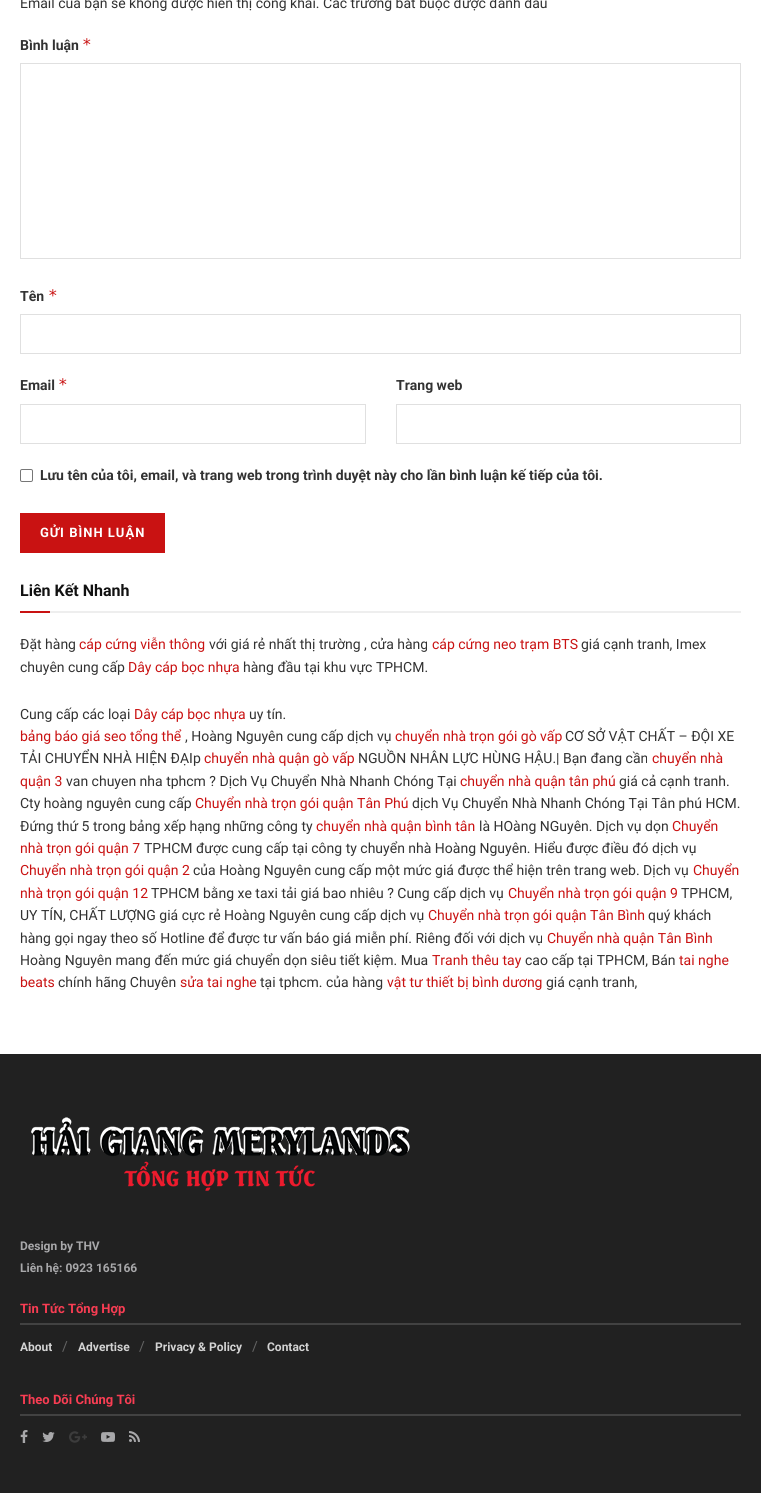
import math
import cairocffi as cairo

surface = cairo.ImageSurface(cairo.FORMAT_RGB24, 761, 1493)
ctx = cairo.Context(surface)
options = cairo.FontOptions()
options.set_hint_metrics(cairo.HINT_METRICS_OFF)
options.set_hint_style(cairo.HINT_STYLE_NONE)
ctx.set_font_options(options)
ctx.set_miter_limit(4)


def rgb(r, g, b):
    ctx.set_source_rgb(r / 255, g / 255, b / 255)


def face(family, size, italic, bold):
    ctx.select_font_face(family, cairo.FONT_SLANT_ITALIC if italic else cairo.FONT_SLANT_NORMAL, cairo.FONT_WEIGHT_BOLD if bold else cairo.FONT_WEIGHT_NORMAL)
    ctx.set_font_size(size)


def label(x, y, s):
    ctx.move_to(x, y)
    ctx.show_text(s)


def tracked(x, y, s, letter, word):
    ctx.move_to(x, y)
    for ch in s:
        ctx.show_text(ch)
        ctx.rel_move_to(letter + word * (ch == ' '), 0)


def rect(x, y, w, h):
    ctx.rectangle(x, y, w, h)
    ctx.fill()


def rrect(x, y, w, h, r):
    ctx.new_sub_path()
    for i, (u, v) in enumerate([(x + w - r, y + h - r), (x + r, y + h - r), (x + r, y + r), (x + w - r, y + r)]):
        ctx.arc(u, v, r, i * math.pi / 2, (i + 1) * math.pi / 2)
    ctx.close_path()


def image(path, x, y, w, h):
    ctx.save()
    ctx.set_source_surface(cairo.ImageSurface.create_from_png(path), x, y)
    ctx.rectangle(x, y, w, h)
    ctx.fill()
    ctx.restore()


rgb(255, 255, 255)
ctx.paint()
face('Roboto', 14, 0, 0)
rgb(50, 50, 50)
label(20, 8, 'Email của bạn sẽ không được hiển thị công khai. Các trường bắt buộc được đánh dấu')
face('Roboto', 14, 0, 1)
label(20, 50, 'Bình luận')
face('DejaVu Sans Mono', 16, 0, 0)
rgb(201, 18, 18)
label(82, 50, '*')
ctx.rectangle(20.5, 63.5, 720, 195)
rgb(224, 224, 224)
ctx.set_line_width(1)
ctx.stroke()
face('Roboto', 14, 0, 1)
rgb(50, 50, 50)
label(20, 301, 'Tên')
face('DejaVu Sans Mono', 16, 0, 0)
rgb(201, 18, 18)
label(48, 301, '*')
ctx.rectangle(20.5, 314.5, 720, 39)
rgb(224, 224, 224)
ctx.stroke()
face('Roboto', 14, 0, 1)
rgb(50, 50, 50)
label(20, 390, 'Email')
face('DejaVu Sans Mono', 16, 0, 0)
rgb(201, 18, 18)
label(58, 390, '*')
ctx.rectangle(20.5, 404.5, 345, 39)
rgb(224, 224, 224)
ctx.stroke()
face('Roboto', 14, 0, 1)
rgb(50, 50, 50)
label(396, 390, 'Trang web')
ctx.rectangle(396.5, 404.5, 344, 39)
rgb(224, 224, 224)
ctx.stroke()
rrect(20.5, 469.5, 12, 12, 1.5)
rgb(118, 118, 118)
ctx.stroke()
rgb(50, 50, 50)
label(40, 480, 'Lưu tên của tôi, email, và trang web trong trình duyệt này cho lần bình luận kế tiếp của tôi.')
rgb(201, 18, 18)
rect(20, 513, 145, 40)
face('Roboto', 13, 0, 1)
rgb(255, 255, 255)
tracked(40, 537, 'GỬI BÌNH LUẬN', 1, 0)
rgb(238, 238, 238)
rect(50, 611, 691, 2)
face('Roboto', 16, 0, 1)
rgb(17, 17, 17)
label(20, 596, 'Liên Kết Nhanh')
rgb(201, 18, 18)
rect(20, 611, 30, 2)
face('Roboto', 14, 0, 0)
rgb(50, 50, 50)
label(20, 649, 'Đặt hàng')
rgb(201, 18, 18)
label(79, 649, 'cáp cứng viễn thông')
rgb(50, 50, 50)
label(209, 649, 'với giá rẻ nhất thị trường , cửa hàng')
rgb(201, 18, 18)
label(432, 649, 'cáp cứng neo trạm BTS')
rgb(50, 50, 50)
label(581, 649, 'giá cạnh tranh, Imex')
label(20, 672, 'chuyên cung cấp')
rgb(201, 18, 18)
label(128, 672, 'Dây cáp bọc nhựa')
rgb(50, 50, 50)
label(243, 672, 'hàng đầu tại khu vực TPHCM.')
label(20, 719, 'Cung cấp các loại')
rgb(201, 18, 18)
label(134, 719, 'Dây cáp bọc nhựa')
rgb(50, 50, 50)
label(249, 719, 'uy tín.')
rgb(201, 18, 18)
label(20, 741, 'bảng báo giá seo tổng thể')
rgb(50, 50, 50)
label(185, 741, ', Hoàng Nguyên cung cấp dịch vụ')
rgb(201, 18, 18)
label(395, 741, 'chuyển nhà trọn gói gò vấp')
rgb(50, 50, 50)
label(565, 741, 'CƠ SỞ VẬT CHẤT – ĐỘI XE')
label(20, 763, 'TẢI CHUYỂN NHÀ HIỆN ĐẠIp')
rgb(201, 18, 18)
label(204, 763, 'chuyển nhà quận gò vấp')
rgb(50, 50, 50)
label(358, 763, 'NGUỒN NHÂN LỰC HÙNG HẬU.| Bạn đang cần')
rgb(201, 18, 18)
label(652, 763, 'chuyển nhà')
label(20, 786, 'quận 3')
rgb(50, 50, 50)
label(66, 786, 'van chuyen nha tphcm ? Dịch Vụ Chuyển Nhà Nhanh Chóng Tại')
rgb(201, 18, 18)
label(460, 786, 'chuyển nhà quận tân phú')
rgb(50, 50, 50)
label(619, 786, 'giá cả cạnh tranh.')
label(20, 808, 'Cty hoàng nguyên cung cấp')
rgb(201, 18, 18)
label(195, 808, 'Chuyển nhà trọn gói quận Tân Phú')
rgb(50, 50, 50)
label(412, 808, 'dịch Vụ Chuyển Nhà Nhanh Chóng Tại Tân phú HCM.')
label(20, 831, 'Đứng thứ 5 trong bảng xếp hạng những công ty')
rgb(201, 18, 18)
label(316, 831, 'chuyển nhà quận bình tân')
rgb(50, 50, 50)
label(479, 831, 'là HOàng NGuyên. Dịch vụ dọn')
rgb(201, 18, 18)
label(672, 831, 'Chuyển')
label(20, 853, 'nhà trọn gói quận 7')
rgb(50, 50, 50)
label(144, 853, 'TPHCM được cung cấp tại công ty chuyển nhà Hoàng Nguyên. Hiểu được điều đó dịch vụ')
rgb(201, 18, 18)
label(20, 875, 'Chuyển nhà trọn gói quận 2')
rgb(50, 50, 50)
label(193, 875, 'của Hoàng Nguyên cung cấp một mức giá được thể hiện trên trang web. Dịch vụ')
rgb(201, 18, 18)
label(693, 875, 'Chuyển')
label(20, 898, 'nhà trọn gói quận 12')
rgb(50, 50, 50)
label(151, 898, 'TPHCM bằng xe taxi tải giá bao nhiêu ? Cung cấp dịch vụ')
rgb(201, 18, 18)
label(508, 898, 'Chuyển nhà trọn gói quận 9')
rgb(50, 50, 50)
label(681, 898, 'TPHCM,')
label(20, 920, 'UY TÍN, CHẤT LƯỢNG giá cực rẻ Hoàng Nguyên cung cấp dịch vụ')
rgb(201, 18, 18)
label(428, 920, 'Chuyển nhà trọn gói quận Tân Bình')
rgb(50, 50, 50)
label(648, 920, 'quý khách')
label(20, 943, 'hàng gọi ngay theo số Hotline để được tư vấn báo giá miễn phí. Riêng đối với dịch vụ')
rgb(201, 18, 18)
label(547, 943, 'Chuyển nhà quận Tân Bình')
rgb(50, 50, 50)
label(20, 965, 'Hoàng Nguyên mang đến mức giá chuyển dọn siêu tiết kiệm. Mua')
rgb(201, 18, 18)
label(432, 965, 'Tranh thêu tay')
rgb(50, 50, 50)
label(525, 965, 'cao cấp tại TPHCM, Bán')
rgb(201, 18, 18)
label(679, 965, 'tai nghe')
label(20, 987, 'beats')
rgb(50, 50, 50)
label(58, 987, 'chính hãng Chuyên')
rgb(201, 18, 18)
label(180, 987, 'sửa tai nghe')
rgb(50, 50, 50)
label(260, 987, 'tại tphcm. của hàng')
rgb(201, 18, 18)
label(387, 987, 'vật tư thiết bị bình dương')
rgb(50, 50, 50)
label(546, 987, 'giá cạnh tranh,')
rgb(33, 33, 33)
rect(0, 1054, 761, 439)
image('image0.png', 31, 1117, 379, 74)
face('Roboto', 12, 0, 1)
rgb(168, 168, 170)
label(20, 1250, 'Design by THV')
label(20, 1272, 'Liên hệ: 0923 165166')
rgb(66, 66, 66)
rect(20, 1323, 721, 2)
face('Roboto', 13, 0, 1)
rgb(249, 61, 83)
label(20, 1313, 'Tin Tức Tổng Hợp')
face('Roboto', 12, 0, 1)
rgb(211, 211, 211)
label(20, 1351, 'About')
face('Roboto', 14, 0, 0)
rgb(100, 100, 100)
label(62, 1351, '/')
face('Roboto', 12, 0, 1)
rgb(211, 211, 211)
label(78, 1351, 'Advertise')
face('Roboto', 14, 0, 0)
rgb(100, 100, 100)
label(139, 1351, '/')
face('Roboto', 12, 0, 1)
rgb(211, 211, 211)
label(155, 1351, 'Privacy & Policy')
face('Roboto', 14, 0, 0)
rgb(100, 100, 100)
label(252, 1351, '/')
face('Roboto', 12, 0, 1)
rgb(211, 211, 211)
label(267, 1351, 'Contact')
rgb(66, 66, 66)
rect(20, 1414, 721, 2)
face('Roboto', 13, 0, 1)
rgb(249, 61, 83)
label(20, 1404, 'Theo Dõi Chúng Tôi')
image('image1.png', 20, 1430, 8, 13)
image('image2.png', 42, 1432, 13, 10)
image('image3.png', 69, 1431, 18, 12)
image('image4.png', 101, 1432, 14, 10)
image('image5.png', 129, 1431, 11, 11)
surface.write_to_png('render.png')
